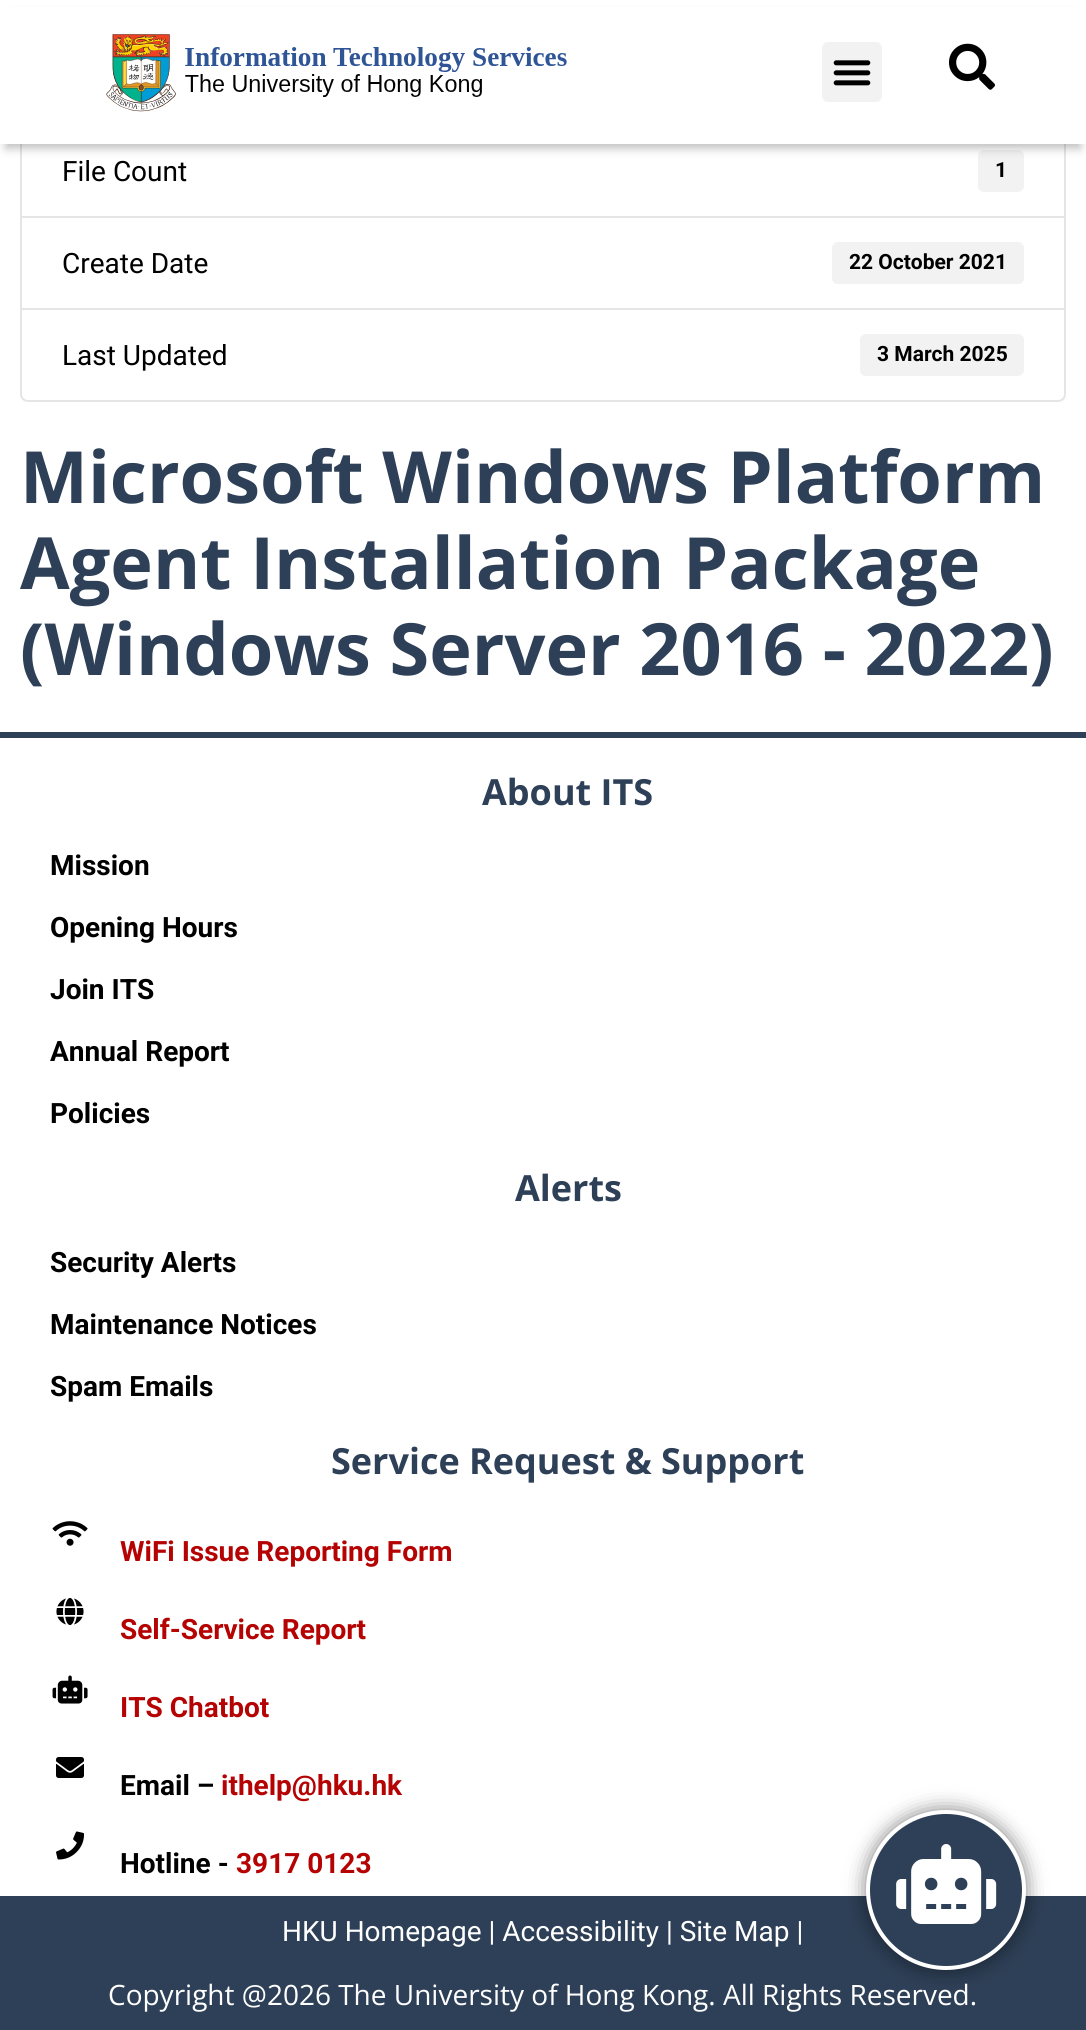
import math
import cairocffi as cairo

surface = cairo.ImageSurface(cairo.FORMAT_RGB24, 1086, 2030)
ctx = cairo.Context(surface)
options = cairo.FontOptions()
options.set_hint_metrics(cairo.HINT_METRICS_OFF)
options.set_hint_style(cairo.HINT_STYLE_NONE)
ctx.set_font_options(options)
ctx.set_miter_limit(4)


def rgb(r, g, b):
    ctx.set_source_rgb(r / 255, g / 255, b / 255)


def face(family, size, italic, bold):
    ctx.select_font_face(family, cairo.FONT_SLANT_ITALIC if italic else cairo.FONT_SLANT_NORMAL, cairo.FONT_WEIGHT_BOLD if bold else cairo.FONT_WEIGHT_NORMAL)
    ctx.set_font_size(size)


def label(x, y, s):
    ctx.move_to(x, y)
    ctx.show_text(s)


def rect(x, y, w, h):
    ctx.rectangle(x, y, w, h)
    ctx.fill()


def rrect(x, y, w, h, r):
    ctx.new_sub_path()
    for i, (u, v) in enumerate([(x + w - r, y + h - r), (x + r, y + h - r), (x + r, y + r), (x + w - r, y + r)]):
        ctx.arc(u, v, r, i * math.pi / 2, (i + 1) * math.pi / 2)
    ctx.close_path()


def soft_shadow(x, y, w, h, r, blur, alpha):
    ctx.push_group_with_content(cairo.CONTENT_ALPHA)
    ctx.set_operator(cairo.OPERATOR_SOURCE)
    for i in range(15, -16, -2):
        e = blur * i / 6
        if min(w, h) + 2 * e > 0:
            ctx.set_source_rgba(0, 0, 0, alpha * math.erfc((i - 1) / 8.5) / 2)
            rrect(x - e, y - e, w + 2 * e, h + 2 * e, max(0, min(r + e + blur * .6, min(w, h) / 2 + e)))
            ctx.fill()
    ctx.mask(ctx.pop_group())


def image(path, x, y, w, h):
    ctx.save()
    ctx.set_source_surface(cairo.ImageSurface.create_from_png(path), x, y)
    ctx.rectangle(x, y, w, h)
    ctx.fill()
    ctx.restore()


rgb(255, 255, 255)
ctx.paint()
ctx.rectangle(21, 125, 1044, 92)
rgb(229, 229, 229)
ctx.stroke()
rgb(242, 242, 242)
rrect(978, 150, 46, 42, 6)
ctx.fill()
rgb(0, 0, 0)
soft_shadow(6, 16, 1074, 132, 0, 5, 0.27)
rgb(255, 255, 255)
rect(0, 7, 1086, 137)
image('image0.png', 106, 34, 461, 78)
rgb(242, 242, 242)
rrect(822, 42, 60, 60, 6)
ctx.fill()
image('image1.png', 833, 60, 38, 26)
image('image2.png', 949, 43, 46, 47)
rgb(46, 64, 87)
rect(0, 1896, 1086, 134)
rgb(0, 0, 0)
soft_shadow(866, 1810, 160, 160, 80, 10, 0.5)
rgb(46, 64, 87)
ctx.arc(946, 1890, 78, 0, 2 * math.pi)
ctx.fill_preserve()
rgb(255, 255, 255)
ctx.set_line_width(4)
ctx.stroke()
image('image3.png', 896, 1844, 101, 80)
face('Roboto', 28, 0, 0)
rgb(0, 0, 0)
label(62, 181, 'File Count')
face('Roboto', 21, 0, 1)
label(995, 177, '1')
ctx.rectangle(21, 217, 1044, 92)
rgb(229, 229, 229)
ctx.set_line_width(2)
ctx.stroke()
face('Roboto', 28, 0, 0)
rgb(0, 0, 0)
label(62, 273, 'Create Date')
rgb(242, 242, 242)
rrect(832, 242, 192, 42, 6)
ctx.fill()
face('Roboto', 21, 0, 1)
rgb(0, 0, 0)
label(849, 269, '22 October 2021')
rgb(255, 255, 255)
ctx.new_path()
ctx.move_to(21, 309)
ctx.line_to(1065, 309)
ctx.line_to(1065, 394)
ctx.curve_to(1065, 398, 1062, 401, 1058, 401)
ctx.line_to(28, 401)
ctx.curve_to(24, 401, 21, 398, 21, 394)
ctx.close_path()
ctx.fill_preserve()
rgb(229, 229, 229)
ctx.stroke()
face('Roboto', 28, 0, 0)
rgb(0, 0, 0)
label(62, 365, 'Last Updated')
rgb(242, 242, 242)
rrect(860, 334, 164, 42, 6)
ctx.fill()
face('Roboto', 21, 0, 1)
rgb(0, 0, 0)
label(877, 361, '3 March 2025')
face('Open Sans', 72, 0, 1)
rgb(46, 64, 87)
label(20, 503, 'Microsoft Windows Platform')
label(20, 589, 'Agent Installation Package')
label(20, 675, '(Windows Server 2016 - 2022)')
rect(0, 732, 1086, 6)
face('Open Sans', 36, 0, 1)
label(482, 805, 'About ITS')
face('Roboto', 28, 0, 1)
rgb(0, 0, 0)
label(50, 875, 'Mission')
label(50, 937, 'Opening Hours')
label(50, 999, 'Join ITS')
label(50, 1061, 'Annual Report')
label(50, 1123, 'Policies')
face('Open Sans', 36, 0, 1)
rgb(46, 64, 87)
label(515, 1201, 'Alerts')
face('Roboto', 28, 0, 1)
rgb(0, 0, 0)
label(50, 1272, 'Security Alerts')
label(50, 1334, 'Maintenance Notices')
label(50, 1396, 'Spam Emails')
face('Open Sans', 36, 0, 1)
rgb(46, 64, 87)
label(331, 1474, 'Service Request & Support')
image('image4.png', 52, 1521, 36, 25)
face('Roboto', 28, 0, 1)
rgb(181, 3, 3)
label(120, 1561, 'WiFi Issue Reporting Form')
image('image5.png', 56, 1598, 28, 27)
label(120, 1639, 'Self-Service Report')
image('image6.png', 52, 1675, 36, 29)
label(120, 1717, 'ITS Chatbot')
image('image7.png', 56, 1757, 28, 21)
rgb(0, 0, 0)
label(120, 1795, 'Email –')
rgb(181, 3, 3)
label(221, 1795, 'ithelp@hku.hk')
image('image8.png', 56, 1831, 29, 29)
rgb(0, 0, 0)
label(120, 1873, 'Hotline -')
rgb(181, 3, 3)
label(236, 1873, '3917 0123')
face('Roboto', 28, 0, 0)
rgb(255, 255, 255)
label(282, 1941, 'HKU Homepage | Accessibility | Site Map |')
face('Open Sans', 28, 0, 0)
label(108, 2005, 'Copyright @2026 The University of Hong Kong. All Rights Reserved.')
surface.write_to_png('render.png')
